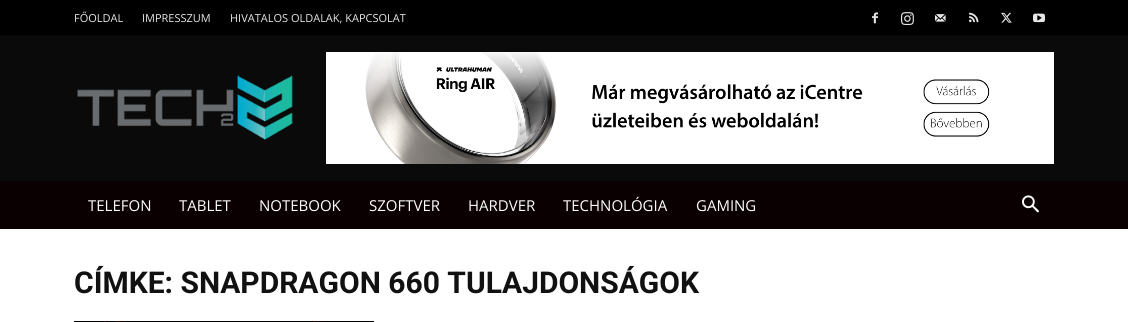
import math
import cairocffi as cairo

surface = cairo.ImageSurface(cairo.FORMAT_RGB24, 1128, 322)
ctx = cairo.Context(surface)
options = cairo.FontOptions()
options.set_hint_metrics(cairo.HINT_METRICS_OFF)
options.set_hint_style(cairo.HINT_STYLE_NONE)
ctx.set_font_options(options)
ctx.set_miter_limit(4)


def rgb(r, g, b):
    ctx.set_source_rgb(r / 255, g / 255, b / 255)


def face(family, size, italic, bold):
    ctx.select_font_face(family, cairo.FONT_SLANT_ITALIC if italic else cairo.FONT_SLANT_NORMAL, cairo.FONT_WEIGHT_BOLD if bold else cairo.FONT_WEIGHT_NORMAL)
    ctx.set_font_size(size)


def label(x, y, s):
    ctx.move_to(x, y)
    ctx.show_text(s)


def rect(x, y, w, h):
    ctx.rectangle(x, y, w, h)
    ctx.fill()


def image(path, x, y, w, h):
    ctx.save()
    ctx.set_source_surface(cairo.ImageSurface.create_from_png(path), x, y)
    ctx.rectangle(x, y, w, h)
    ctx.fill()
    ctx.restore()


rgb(10, 10, 10)
ctx.paint()
rgb(0, 0, 0)
rect(0, 0, 1128, 35)
face('Open Sans', 11, 0, 0)
rgb(232, 232, 232)
label(74, 22, 'FŐOLDAL')
label(142, 22, 'IMPRESSZUM')
label(230, 22, 'HIVATALOS OLDALAK, KAPCSOLAT')
image('image0.png', 872, 12, 6, 12)
image('image1.png', 901, 12, 13, 13)
image('image2.png', 935, 14, 11, 8)
image('image3.png', 969, 12, 10, 11)
image('image4.png', 1001, 12, 11, 11)
image('image5.png', 1033, 13, 12, 10)
image('image6.png', 77, 75, 216, 65)
image('image7.png', 326, 52, 728, 112)
rgb(10, 0, 2)
rect(0, 181, 1128, 48)
face('Open Sans', 15, 0, 0)
rgb(255, 255, 255)
label(88, 211, 'TELEFON')
label(179, 211, 'TABLET')
label(259, 211, 'NOTEBOOK')
label(369, 211, 'SZOFTVER')
label(468, 211, 'HARDVER')
label(563, 211, 'TECHNOLÓGIA')
label(696, 211, 'GAMING')
image('image8.png', 1022, 195, 17, 18)
rect(0, 229, 1128, 93)
face('Roboto', 30, 0, 1)
rgb(17, 17, 17)
label(74, 293, 'CÍMKE: SNAPDRAGON 660 TULAJDONSÁGOK')
image('image9.png', 74, 321, 300, 1)
surface.write_to_png('render.png')
